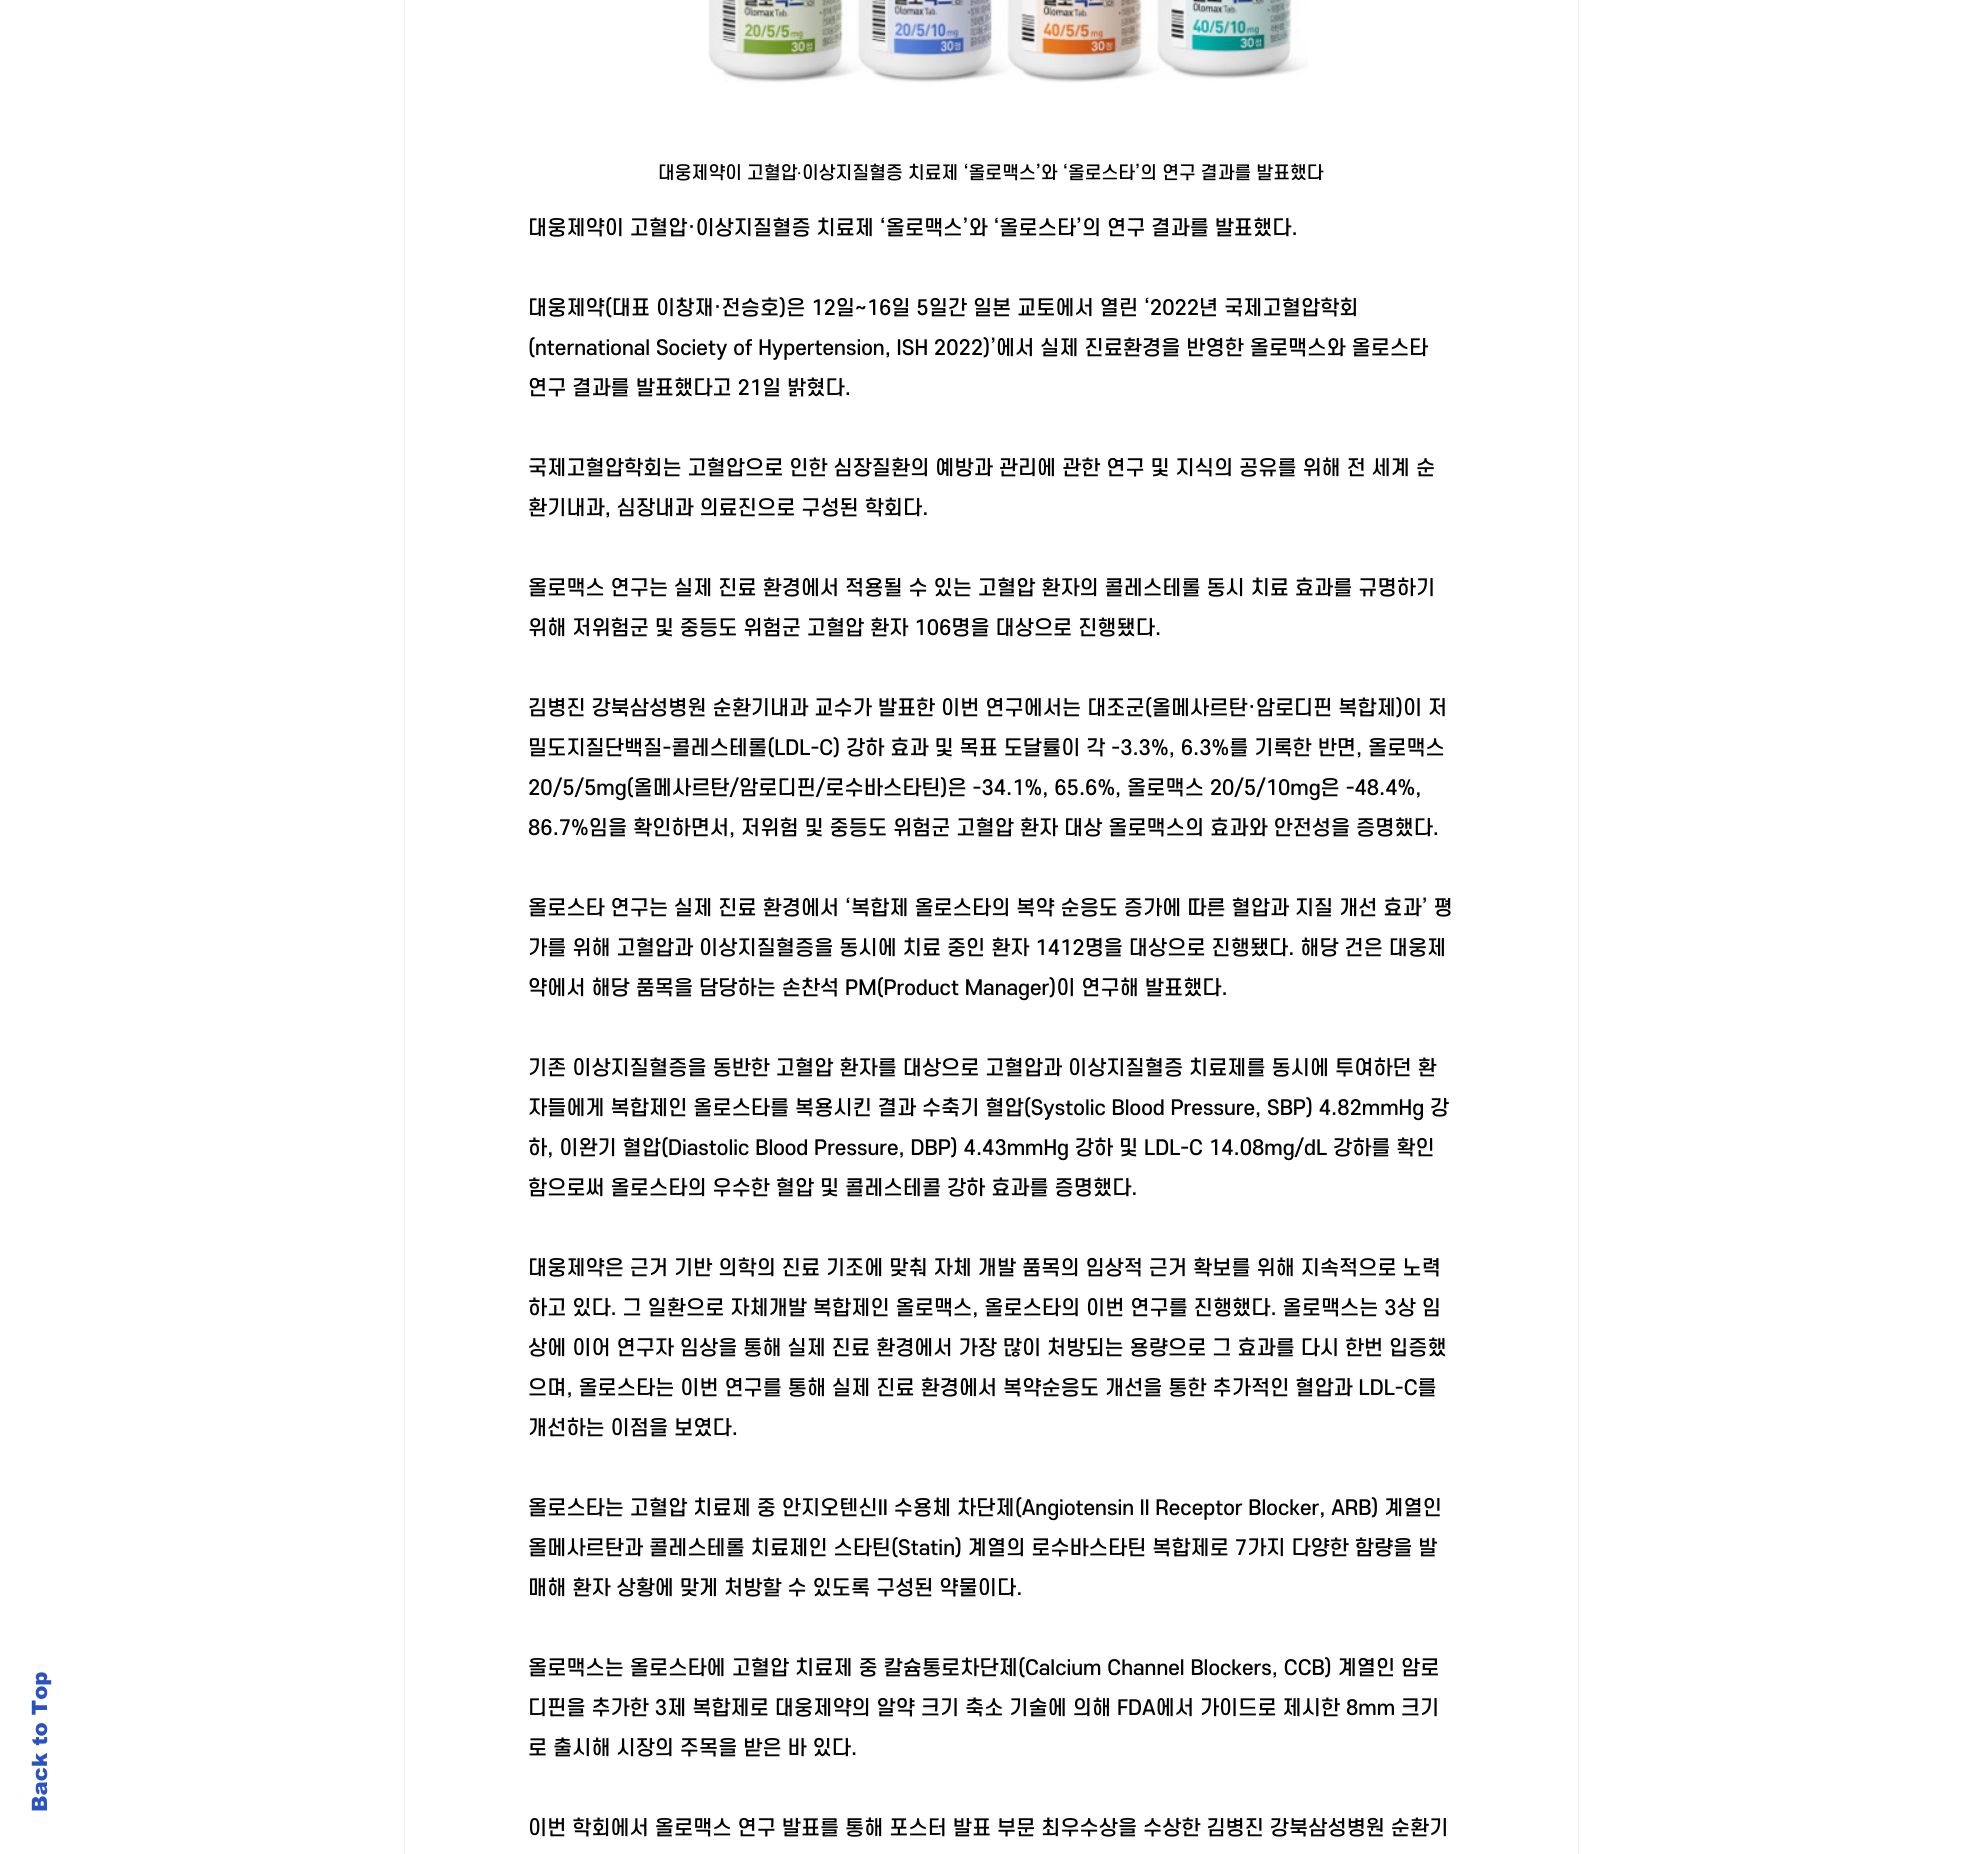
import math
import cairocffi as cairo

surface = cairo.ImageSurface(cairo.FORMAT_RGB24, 1981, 1854)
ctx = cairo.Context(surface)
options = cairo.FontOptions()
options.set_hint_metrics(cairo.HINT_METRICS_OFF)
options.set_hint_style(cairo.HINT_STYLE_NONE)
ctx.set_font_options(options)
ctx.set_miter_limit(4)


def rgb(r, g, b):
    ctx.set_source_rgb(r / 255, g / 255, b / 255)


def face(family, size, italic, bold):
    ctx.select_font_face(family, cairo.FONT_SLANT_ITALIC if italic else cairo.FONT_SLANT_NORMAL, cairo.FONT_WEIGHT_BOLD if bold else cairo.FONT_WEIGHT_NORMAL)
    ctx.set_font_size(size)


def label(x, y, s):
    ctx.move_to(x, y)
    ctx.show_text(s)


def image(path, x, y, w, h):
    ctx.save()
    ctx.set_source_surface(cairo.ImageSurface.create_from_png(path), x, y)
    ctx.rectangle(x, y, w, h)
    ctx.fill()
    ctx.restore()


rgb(255, 255, 255)
ctx.paint()
face('arial Black', 21.25, 0, 0)
rgb(42, 83, 193)
ctx.save()
ctx.translate(47, 1812)
ctx.rotate(-90 * math.pi / 180)
label(0, 0, 'Back to Top')
ctx.restore()
ctx.rectangle(404.5, -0.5, 1174, 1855)
rgb(245, 245, 245)
ctx.set_line_width(1)
ctx.stroke()
image('image0.png', 708, 0, 600, 83)
face('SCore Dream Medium', 17.5, 0, 0)
rgb(0, 0, 0)
label(658, 179, '대웅제약이 고혈압')
face('Liberation Serif', 17.5, 0, 0)
label(797, 179, '∙')
face('SCore Dream Medium', 17.5, 0, 0)
label(802, 179, '이상지질혈증 치료제 ‘올로맥스’와 ‘올로스타’의 연구 결과를 발표했다')
face('SCore Dream Medium', 20, 0, 0)
label(528, 235, '대웅제약이 고혈압·이상지질혈증 치료제 ‘올로맥스’와 ‘올로스타’의 연구 결과를 발표했다.')
label(528, 315, '대웅제약(대표 이창재·전승호)은 12일~16일 5일간 일본 교토에서 열린 ‘2022년 국제고혈압학회')
label(528, 355, '(nternational Society of Hypertension, ISH 2022)’에서 실제 진료환경을 반영한 올로맥스와 올로스타')
label(528, 395, '연구 결과를 발표했다고 21일 밝혔다.')
label(528, 475, '국제고혈압학회는 고혈압으로 인한 심장질환의 예방과 관리에 관한 연구 및 지식의 공유를 위해 전 세계 순')
label(528, 515, '환기내과, 심장내과 의료진으로 구성된 학회다.')
label(528, 595, '올로맥스 연구는 실제 진료 환경에서 적용될 수 있는 고혈압 환자의 콜레스테롤 동시 치료 효과를 규명하기')
label(528, 635, '위해 저위험군 및 중등도 위험군 고혈압 환자 106명을 대상으로 진행됐다.')
label(528, 715, '김병진 강북삼성병원 순환기내과 교수가 발표한 이번 연구에서는 대조군(올메사르탄·암로디핀 복합제)이 저')
label(528, 755, '밀도지질단백질-콜레스테롤(LDL-C) 강하 효과 및 목표 도달률이 각 -3.3%, 6.3%를 기록한 반면, 올로맥스')
label(528, 795, '20/5/5mg(올메사르탄/암로디핀/로수바스타틴)은 -34.1%, 65.6%, 올로맥스 20/5/10mg은 -48.4%,')
label(528, 835, '86.7%임을 확인하면서, 저위험 및 중등도 위험군 고혈압 환자 대상 올로맥스의 효과와 안전성을 증명했다.')
label(528, 915, '올로스타 연구는 실제 진료 환경에서 ‘복합제 올로스타의 복약 순응도 증가에 따른 혈압과 지질 개선 효과’ 평')
label(528, 955, '가를 위해 고혈압과 이상지질혈증을 동시에 치료 중인 환자 1412명을 대상으로 진행됐다. 해당 건은 대웅제')
label(528, 995, '약에서 해당 품목을 담당하는 손찬석 PM(Product Manager)이 연구해 발표했다.')
label(528, 1075, '기존 이상지질혈증을 동반한 고혈압 환자를 대상으로 고혈압과 이상지질혈증 치료제를 동시에 투여하던 환')
label(528, 1115, '자들에게 복합제인 올로스타를 복용시킨 결과 수축기 혈압(Systolic Blood Pressure, SBP) 4.82mmHg 강')
label(528, 1155, '하, 이완기 혈압(Diastolic Blood Pressure, DBP) 4.43mmHg 강하 및 LDL-C 14.08mg/dL 강하를 확인')
label(528, 1195, '함으로써 올로스타의 우수한 혈압 및 콜레스테콜 강하 효과를 증명했다.')
label(528, 1275, '대웅제약은 근거 기반 의학의 진료 기조에 맞춰 자체 개발 품목의 임상적 근거 확보를 위해 지속적으로 노력')
label(528, 1315, '하고 있다. 그 일환으로 자체개발 복합제인 올로맥스, 올로스타의 이번 연구를 진행했다. 올로맥스는 3상 임')
label(528, 1355, '상에 이어 연구자 임상을 통해 실제 진료 환경에서 가장 많이 처방되는 용량으로 그 효과를 다시 한번 입증했')
label(528, 1395, '으며, 올로스타는 이번 연구를 통해 실제 진료 환경에서 복약순응도 개선을 통한 추가적인 혈압과 LDL-C를')
label(528, 1435, '개선하는 이점을 보였다.')
label(528, 1515, '올로스타는 고혈압 치료제 중 안지오텐신II 수용체 차단제(Angiotensin ll Receptor Blocker, ARB) 계열인')
label(528, 1555, '올메사르탄과 콜레스테롤 치료제인 스타틴(Statin) 계열의 로수바스타틴 복합제로 7가지 다양한 함량을 발')
label(528, 1595, '매해 환자 상황에 맞게 처방할 수 있도록 구성된 약물이다.')
label(528, 1675, '올로맥스는 올로스타에 고혈압 치료제 중 칼슘통로차단제(Calcium Channel Blockers, CCB) 계열인 암로')
label(528, 1715, '디핀을 추가한 3제 복합제로 대웅제약의 알약 크기 축소 기술에 의해 FDA에서 가이드로 제시한 8mm 크기')
label(528, 1755, '로 출시해 시장의 주목을 받은 바 있다.')
label(528, 1835, '이번 학회에서 올로맥스 연구 발표를 통해 포스터 발표 부문 최우수상을 수상한 김병진 강북삼성병원 순환기')
surface.write_to_png('render.png')
